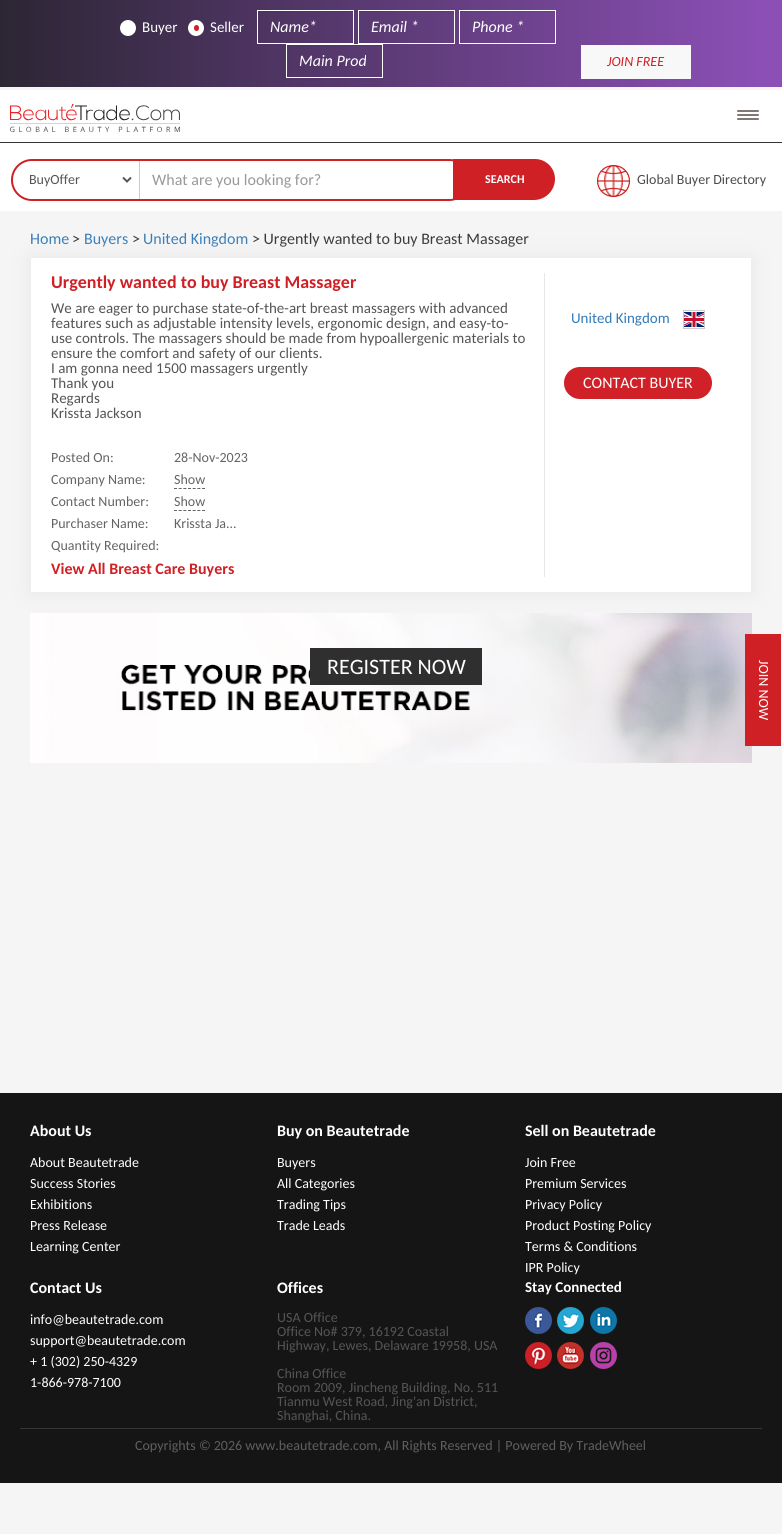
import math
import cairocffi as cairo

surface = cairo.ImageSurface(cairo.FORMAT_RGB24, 782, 1534)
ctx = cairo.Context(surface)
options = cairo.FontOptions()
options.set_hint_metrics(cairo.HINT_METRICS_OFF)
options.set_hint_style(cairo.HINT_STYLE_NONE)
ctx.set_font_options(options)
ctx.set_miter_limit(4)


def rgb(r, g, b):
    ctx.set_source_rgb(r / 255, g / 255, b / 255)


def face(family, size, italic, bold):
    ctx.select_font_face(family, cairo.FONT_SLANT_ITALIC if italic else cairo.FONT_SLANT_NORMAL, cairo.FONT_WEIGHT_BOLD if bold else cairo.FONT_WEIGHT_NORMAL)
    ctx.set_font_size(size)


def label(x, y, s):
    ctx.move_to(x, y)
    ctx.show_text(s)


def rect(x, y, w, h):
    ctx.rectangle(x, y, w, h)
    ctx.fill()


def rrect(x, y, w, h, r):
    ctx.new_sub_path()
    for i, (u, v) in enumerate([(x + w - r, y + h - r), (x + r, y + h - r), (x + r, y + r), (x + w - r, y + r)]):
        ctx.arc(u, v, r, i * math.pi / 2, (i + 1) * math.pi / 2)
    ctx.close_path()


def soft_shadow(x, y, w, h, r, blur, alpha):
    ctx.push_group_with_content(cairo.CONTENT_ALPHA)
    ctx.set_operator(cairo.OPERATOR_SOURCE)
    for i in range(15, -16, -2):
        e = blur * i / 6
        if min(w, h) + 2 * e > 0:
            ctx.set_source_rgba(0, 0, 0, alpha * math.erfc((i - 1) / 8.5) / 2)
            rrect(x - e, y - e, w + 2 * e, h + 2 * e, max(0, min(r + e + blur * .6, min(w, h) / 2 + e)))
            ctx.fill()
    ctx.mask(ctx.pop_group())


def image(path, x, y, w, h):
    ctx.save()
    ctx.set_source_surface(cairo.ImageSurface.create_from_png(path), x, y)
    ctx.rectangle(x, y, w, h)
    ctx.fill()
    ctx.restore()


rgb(245, 245, 245)
ctx.paint()
gradient = cairo.LinearGradient(0, 44, 782, 43)
gradient.add_color_stop_rgba(0, 0.173, 0.149, 0.204, 1)
gradient.add_color_stop_rgba(0.97, 0.545, 0.31, 0.71, 1)
ctx.set_source(gradient)
rect(0, 0, 782, 87)
gradient = cairo.LinearGradient(0, 44, 782, 43)
gradient.add_color_stop_rgba(0, 0.161, 0.137, 0.188, 1)
gradient.add_color_stop_rgba(0.97, 0.506, 0.286, 0.659, 1)
ctx.set_source(gradient)
rect(287, 45, 95, 1)
rect(460, 11, 95, 1)
rect(359, 11, 95, 1)
rect(258, 11, 95, 1)
rgb(255, 255, 255)
ctx.arc(128, 28, 8, 0, 2 * math.pi)
ctx.fill()
face('Carlito', 15, 0, 0)
label(142, 32, 'Buyer')
ctx.new_path()
ctx.arc(196, 28, 8, 0, 2 * math.pi)
ctx.fill()
rgb(207, 33, 39)
rrect(194, 25, 5, 6, 2.5)
ctx.fill()
rgb(255, 255, 255)
label(210, 32, 'Seller')
ctx.rectangle(257.5, 10.5, 96, 33)
ctx.set_line_width(1)
ctx.stroke()
face('Carlito', 16, 1, 0)
label(270, 32, 'Name*')
ctx.rectangle(358.5, 10.5, 96, 33)
ctx.stroke()
label(371, 32, 'Email *')
ctx.rectangle(459.5, 10.5, 96, 33)
ctx.stroke()
label(472, 32, 'Phone *')
ctx.rectangle(286.5, 44.5, 96, 33)
ctx.stroke()
label(299, 66, 'Main Prod')
rgb(248, 248, 248)
rect(581, 45, 110, 34)
face('Carlito', 14, 1, 0)
rgb(207, 32, 38)
label(607, 66, 'JOIN FREE')
rgb(255, 255, 255)
rect(0, 90, 782, 121)
rgb(51, 51, 51)
rect(0, 142, 782, 1)
rgb(126, 119, 115)
rrect(737, 110, 22, 2, 1)
ctx.fill()
rrect(737, 114, 22, 2, 1)
ctx.fill()
rrect(737, 118, 22, 2, 1)
ctx.fill()
image('image0.png', 10, 104, 170, 28)
rrect(12, 160, 457, 40, 20)
rgb(207, 32, 38)
ctx.set_line_width(2)
ctx.stroke()
rgb(255, 255, 255)
ctx.new_path()
ctx.move_to(34, 161)
ctx.line_to(135, 161)
ctx.line_to(135, 199)
ctx.line_to(34, 199)
ctx.curve_to(23.5, 199, 15, 190.5, 15, 180)
ctx.curve_to(15, 169.5, 23.5, 161, 34, 161)
ctx.close_path()
ctx.fill()
ctx.new_path()
ctx.move_to(123, 177.5)
ctx.line_to(127, 181.5)
ctx.line_to(131, 177.5)
rgb(85, 85, 85)
ctx.stroke()
face('Carlito', 14, 0, 0)
label(29, 184, 'BuyOffer')
rgb(255, 255, 255)
ctx.new_path()
ctx.move_to(139, 161)
ctx.line_to(447, 161)
ctx.curve_to(457.5, 161, 466, 169.5, 466, 180)
ctx.curve_to(466, 190.5, 457.5, 199, 447, 199)
ctx.line_to(139, 199)
ctx.close_path()
ctx.fill()
rgb(204, 204, 204)
rect(139, 161, 1, 38)
face('Carlito', 16, 0, 0)
rgb(153, 153, 153)
label(152, 185, 'What are you looking for?')
rgb(207, 32, 38)
ctx.new_path()
ctx.move_to(453, 159)
ctx.line_to(535, 159)
ctx.curve_to(546, 159, 555, 168, 555, 179)
ctx.curve_to(555, 190.5, 545.5, 200, 534, 200)
ctx.line_to(453, 200)
ctx.close_path()
ctx.fill()
face('Carlito', 12, 0, 1)
rgb(255, 255, 255)
label(485, 183, 'SEARCH')
image('image1.png', 597, 165, 33, 32)
face('Carlito', 14, 0, 0)
rgb(76, 76, 76)
label(637, 184, 'Global Buyer Directory')
face('Carlito', 16, 0, 0)
rgb(51, 122, 183)
label(30, 244, 'Home')
rgb(51, 51, 51)
label(72, 244, '>')
rgb(51, 122, 183)
label(84, 244, 'Buyers')
rgb(51, 51, 51)
label(132, 244, '>')
rgb(51, 122, 183)
label(143, 244, 'United Kingdom')
rgb(51, 51, 51)
label(252, 244, '> Urgently wanted to buy Breast Massager')
rgb(233, 231, 231)
soft_shadow(30, 257, 722, 336, 0, 10, 1)
rgb(255, 255, 255)
ctx.rectangle(30.5, 257.5, 721, 335)
ctx.fill_preserve()
rgb(239, 238, 238)
ctx.set_line_width(1)
ctx.stroke()
rgb(231, 231, 231)
rect(544, 273, 1, 304)
face('Carlito', 18, 0, 1)
rgb(207, 32, 38)
label(51, 288, 'Urgently wanted to buy Breast Massager')
face('Carlito', 15, 0, 0)
rgb(85, 85, 85)
label(51, 313, 'We are eager to purchase state-of-the-art breast massagers with advanced')
label(51, 328, 'features such as adjustable intensity levels, ergonomic design, and easy-to-')
label(51, 343, 'use controls. The massagers should be made from hypoallergenic materials to')
label(51, 358, 'ensure the comfort and safety of our clients.')
label(51, 373, 'I am gonna need 1500 massagers urgently')
label(51, 388, 'Thank you')
label(51, 403, 'Regards')
label(51, 418, 'Krissta Jackson')
face('Carlito', 14, 0, 0)
rgb(101, 100, 100)
label(51, 462, 'Posted On:')
label(174, 462, '28-Nov-2023')
label(51, 484, 'Company Name:')
label(174, 484, 'Show')
ctx.new_path()
ctx.move_to(174, 488.5)
ctx.line_to(205, 488.5)
ctx.set_dash([3, 1.67])
ctx.stroke()
label(51, 506, 'Contact Number:')
label(174, 506, 'Show')
ctx.new_path()
ctx.move_to(174, 510.5)
ctx.line_to(205, 510.5)
ctx.stroke()
label(51, 528, 'Purchaser Name:')
label(174, 528, 'Krissta Ja...')
label(51, 550, 'Quantity Required:')
face('Carlito', 16, 0, 1)
rgb(207, 32, 38)
label(51, 574, 'View All Breast Care Buyers')
face('Carlito', 15, 0, 0)
rgb(51, 122, 183)
label(571, 323, 'United Kingdom')
ctx.rectangle(683.5, 310.5, 21, 18)
rgb(204, 204, 204)
ctx.set_dash([])
ctx.stroke()
image('image2.png', 684, 312, 20, 15)
rgb(207, 33, 39)
rrect(564, 367, 148, 32, 16)
ctx.fill()
face('Carlito', 16, 0, 0)
rgb(255, 255, 255)
label(583, 388, 'CONTACT BUYER')
image('image3.png', 30, 613, 722, 150)
rgb(47, 47, 47)
rect(310, 648, 172, 37)
face('Carlito', 22, 0, 0)
rgb(255, 255, 255)
label(327, 674, 'REGISTER NOW')
rgb(207, 32, 38)
rect(745, 634, 36, 112)
face('Carlito', 14, 0, 0)
rgb(255, 255, 255)
ctx.save()
ctx.translate(759, 660)
ctx.rotate(90 * math.pi / 180)
label(0, 0, 'JOIN NOW')
ctx.restore()
rgb(21, 21, 21)
rect(0, 1093, 782, 390)
face('Carlito', 16, 0, 1)
rgb(255, 255, 255)
label(30, 1136, 'About Us')
face('Carlito', 14, 0, 0)
label(30, 1167, 'About Beautetrade')
label(30, 1188, 'Success Stories')
label(30, 1209, 'Exhibitions')
label(30, 1230, 'Press Release')
label(30, 1251, 'Learning Center')
face('Carlito', 16, 0, 1)
label(277, 1136, 'Buy on Beautetrade')
face('Carlito', 14, 0, 0)
label(277, 1167, 'Buyers')
label(277, 1188, 'All Categories')
label(277, 1209, 'Trading Tips')
label(277, 1230, 'Trade Leads')
face('Carlito', 16, 0, 1)
label(525, 1136, 'Sell on Beautetrade')
face('Carlito', 14, 0, 0)
label(525, 1167, 'Join Free')
label(525, 1188, 'Premium Services')
label(525, 1209, 'Privacy Policy')
label(525, 1230, 'Product Posting Policy')
label(525, 1251, 'Terms & Conditions')
label(525, 1272, 'IPR Policy')
face('Carlito', 16, 0, 1)
label(30, 1293, 'Contact Us')
face('Carlito', 14, 0, 0)
label(30, 1324, 'info@beautetrade.com')
label(30, 1345, 'support@beautetrade.com')
label(30, 1366, '+ 1 (302) 250-4329')
label(30, 1387, '1-866-978-7100')
face('Carlito', 16, 0, 1)
label(277, 1293, 'Offices')
face('Carlito', 14, 0, 0)
rgb(85, 85, 85)
label(277, 1322, 'USA Office')
label(277, 1336, 'Office No# 379, 16192 Coastal')
label(277, 1350, 'Highway, Lewes, Delaware 19958, USA')
label(277, 1378, 'China Office')
label(277, 1392, 'Room 2009, Jincheng Building, No. 511')
label(277, 1406, 'Tianmu West Road, Jing\'an District,')
label(277, 1420, 'Shanghai, China.')
face('Carlito', 15, 0, 1)
rgb(255, 255, 255)
label(525, 1292, 'Stay Connected')
image('image4.png', 525, 1307, 27, 27)
image('image5.png', 557, 1307, 27, 27)
image('image6.png', 590, 1307, 27, 27)
image('image7.png', 525, 1342, 27, 27)
image('image8.png', 557, 1342, 27, 27)
image('image9.png', 590, 1342, 27, 27)
rgb(53, 53, 53)
rect(20, 1428, 742, 1)
face('Carlito', 14, 0, 0)
rgb(95, 95, 95)
label(135, 1450, 'Copyrights © 2026 www.beautetrade.com, All Rights Reserved | Powered By TradeWheel')
surface.write_to_png('render.png')
